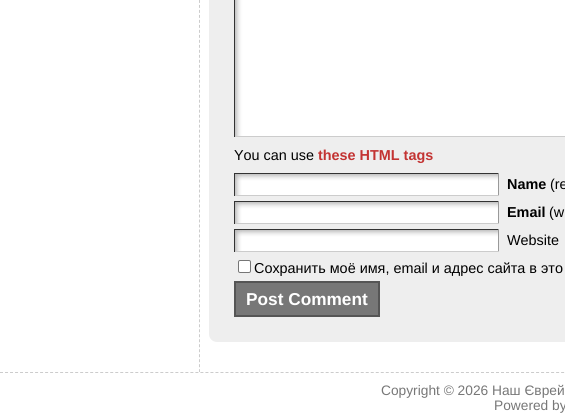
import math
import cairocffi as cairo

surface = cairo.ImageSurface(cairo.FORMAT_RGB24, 565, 415)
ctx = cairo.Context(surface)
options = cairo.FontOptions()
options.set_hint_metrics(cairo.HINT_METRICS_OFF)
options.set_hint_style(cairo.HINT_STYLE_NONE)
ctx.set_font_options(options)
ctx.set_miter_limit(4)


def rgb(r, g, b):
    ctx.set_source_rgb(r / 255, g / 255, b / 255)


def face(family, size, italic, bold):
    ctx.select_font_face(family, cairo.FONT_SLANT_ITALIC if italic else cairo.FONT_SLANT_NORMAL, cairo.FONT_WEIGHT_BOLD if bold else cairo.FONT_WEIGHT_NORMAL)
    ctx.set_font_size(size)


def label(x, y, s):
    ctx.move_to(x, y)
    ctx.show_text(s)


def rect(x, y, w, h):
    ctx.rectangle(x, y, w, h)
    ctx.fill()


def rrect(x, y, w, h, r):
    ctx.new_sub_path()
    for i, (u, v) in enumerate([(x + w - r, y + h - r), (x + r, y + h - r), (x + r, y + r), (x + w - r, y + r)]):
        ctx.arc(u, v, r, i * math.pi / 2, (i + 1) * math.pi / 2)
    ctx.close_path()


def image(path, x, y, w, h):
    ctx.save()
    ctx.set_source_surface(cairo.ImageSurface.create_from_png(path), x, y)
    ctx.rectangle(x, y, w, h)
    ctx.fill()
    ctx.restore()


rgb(255, 255, 255)
ctx.paint()
ctx.new_path()
ctx.move_to(199.5, -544)
ctx.line_to(199.5, 372)
rgb(204, 204, 204)
ctx.set_line_width(1)
ctx.set_dash([3, 1.99])
ctx.stroke()
rgb(238, 238, 238)
rrect(209, -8, 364, 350, 8)
ctx.fill()
image('image0.png', 235, 0, 330, 136)
rgb(204, 204, 204)
rect(234, 136, 331, 1)
rgb(51, 51, 51)
rect(234, 0, 1, 137)
face('Liberation Sans', 14.4, 0, 0)
rgb(0, 0, 0)
label(234, 160, 'You can use')
face('Liberation Sans', 14.4, 0, 1)
rgb(195, 51, 50)
label(318, 160, 'these HTML tags')
image('image1.png', 235, 174, 263, 21)
rgb(51, 51, 51)
rect(234, 173, 265, 1)
rgb(153, 153, 153)
rect(498, 173, 1, 23)
rgb(204, 204, 204)
rect(234, 195, 265, 1)
rgb(51, 51, 51)
rect(234, 173, 1, 23)
rgb(0, 0, 0)
label(507, 189, 'Name')
face('Liberation Sans', 14.4, 0, 0)
label(550, 189, '(re')
image('image1.png', 235, 202, 263, 21)
rgb(51, 51, 51)
rect(234, 201, 265, 1)
rgb(153, 153, 153)
rect(498, 201, 1, 23)
rgb(204, 204, 204)
rect(234, 223, 265, 1)
rgb(51, 51, 51)
rect(234, 201, 1, 23)
face('Liberation Sans', 14.4, 0, 1)
rgb(0, 0, 0)
label(507, 217, 'Email')
face('Liberation Sans', 14.4, 0, 0)
label(549, 217, '(w')
image('image1.png', 235, 230, 263, 21)
rgb(51, 51, 51)
rect(234, 229, 265, 1)
rgb(153, 153, 153)
rect(498, 229, 1, 23)
rgb(204, 204, 204)
rect(234, 251, 265, 1)
rgb(51, 51, 51)
rect(234, 229, 1, 23)
rgb(0, 0, 0)
label(507, 245, 'Website')
rgb(255, 255, 255)
rrect(238.5, 260.5, 12, 12, 1.5)
ctx.fill_preserve()
rgb(118, 118, 118)
ctx.set_dash([])
ctx.stroke()
rgb(0, 0, 0)
label(254, 273, 'Сохранить моё имя, email и адрес сайта в это')
rgb(119, 119, 119)
ctx.rectangle(235, 282, 144, 34)
ctx.fill_preserve()
rgb(85, 85, 85)
ctx.set_line_width(2)
ctx.stroke()
face('Liberation Sans', 17.25, 0, 1)
rgb(255, 255, 255)
label(246, 305, 'Post Comment')
ctx.new_path()
ctx.move_to(0, 372.5)
ctx.line_to(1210, 372.5)
rgb(204, 204, 204)
ctx.set_line_width(1)
ctx.set_dash([3, 2.01])
ctx.stroke()
face('Liberation Sans', 13.75, 0, 0)
rgb(119, 119, 119)
label(381, 395, 'Copyright © 2026 Наш Єврей')
label(494, 410, 'Powered by')
surface.write_to_png('render.png')
